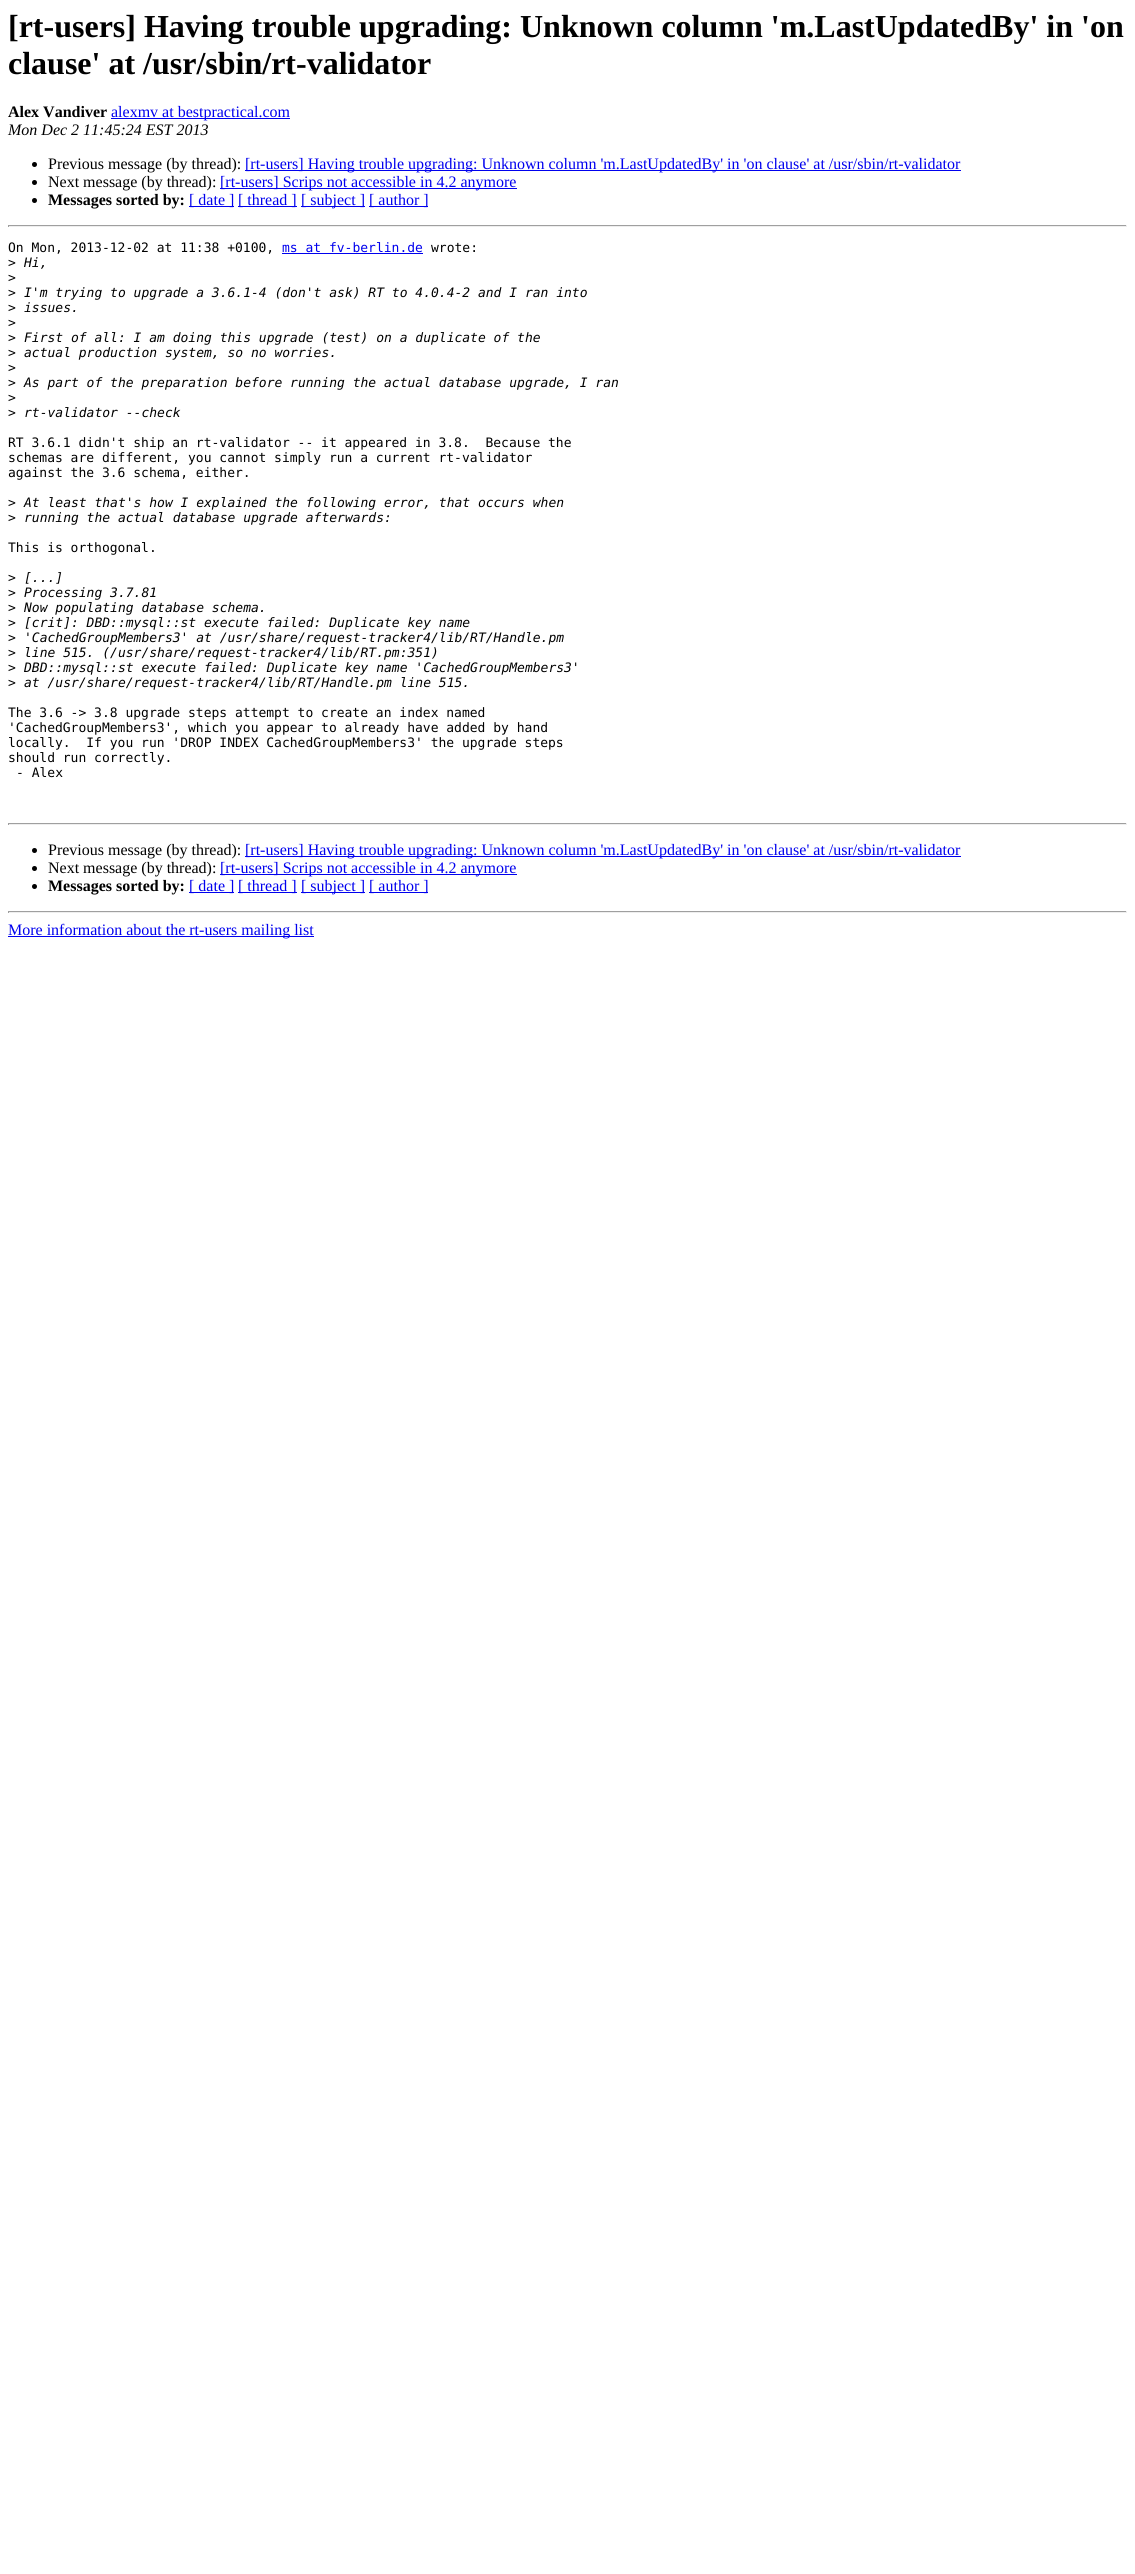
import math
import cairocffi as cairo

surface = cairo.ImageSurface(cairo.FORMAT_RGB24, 1135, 2574)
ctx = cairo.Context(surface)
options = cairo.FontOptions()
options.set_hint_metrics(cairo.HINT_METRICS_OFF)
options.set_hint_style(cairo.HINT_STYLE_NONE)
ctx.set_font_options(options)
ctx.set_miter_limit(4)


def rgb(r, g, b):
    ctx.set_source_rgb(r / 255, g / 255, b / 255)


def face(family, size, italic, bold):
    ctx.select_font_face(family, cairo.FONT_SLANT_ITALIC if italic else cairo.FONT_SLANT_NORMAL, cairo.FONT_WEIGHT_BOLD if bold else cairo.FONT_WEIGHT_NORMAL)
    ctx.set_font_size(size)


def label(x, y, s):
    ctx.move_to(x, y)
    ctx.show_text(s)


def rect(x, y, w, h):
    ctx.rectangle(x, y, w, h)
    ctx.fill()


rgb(255, 255, 255)
ctx.paint()
face('Liberation Serif', 32, 0, 1)
rgb(0, 0, 0)
label(8, 37, '[rt-users] Having trouble upgrading: Unknown column \'m.LastUpdatedBy\' in \'on')
label(8, 74, 'clause\' at /usr/sbin/rt-validator')
face('Liberation Serif', 16, 0, 1)
label(8, 117, 'Alex Vandiver')
rgb(0, 0, 238)
rect(111, 118, 179, 1)
face('Liberation Serif', 16, 0, 0)
label(111, 117, 'alexmv at bestpractical.com')
face('Liberation Serif', 16, 1, 0)
rgb(0, 0, 0)
label(8, 135, 'Mon Dec 2 11:45:24 EST 2013')
ctx.new_path()
ctx.arc(34.5, 164.5, 2.5, 0, 2 * math.pi)
ctx.fill()
face('Liberation Serif', 16, 0, 0)
label(48, 169, 'Previous message (by thread):')
rgb(0, 0, 238)
rect(245, 170, 716, 1)
label(245, 169, '[rt-users] Having trouble upgrading: Unknown column \'m.LastUpdatedBy\' in \'on clause\' at /usr/sbin/rt-validator')
rgb(0, 0, 0)
ctx.new_path()
ctx.arc(34.5, 182.5, 2.5, 0, 2 * math.pi)
ctx.fill()
label(48, 187, 'Next message (by thread):')
rgb(0, 0, 238)
rect(220, 188, 297, 1)
label(220, 187, '[rt-users] Scrips not accessible in 4.2 anymore')
rgb(0, 0, 0)
ctx.new_path()
ctx.arc(34.5, 200.5, 2.5, 0, 2 * math.pi)
ctx.fill()
face('Liberation Serif', 16, 0, 1)
label(48, 205, 'Messages sorted by:')
rgb(0, 0, 238)
rect(189, 206, 45, 1)
face('Liberation Serif', 16, 0, 0)
label(189, 205, '[ date ]')
rect(238, 206, 59, 1)
label(238, 205, '[ thread ]')
rect(301, 206, 64, 1)
label(301, 205, '[ subject ]')
rect(369, 206, 59, 1)
label(369, 205, '[ author ]')
rgb(159, 159, 159)
rect(8, 225, 1119, 1)
rgb(238, 238, 238)
rect(1126, 225, 1, 2)
rect(8, 226, 1119, 1)
rgb(159, 159, 159)
rect(8, 225, 1, 2)
face('DejaVu Sans Mono', 13, 0, 0)
rgb(0, 0, 0)
label(8, 252, 'On Mon, 2013-12-02 at 11:38 +0100,')
rgb(0, 0, 238)
label(282, 252, 'ms at fv-berlin.de')
rect(282, 253, 141, 1)
rgb(0, 0, 0)
label(431, 252, 'wrote:')
label(8, 267, '>')
face('DejaVu Sans Mono', 13, 1, 0)
label(24, 267, 'Hi,')
face('DejaVu Sans Mono', 13, 0, 0)
label(8, 282, '>')
label(8, 297, '>')
face('DejaVu Sans Mono', 13, 1, 0)
label(24, 297, 'I\'m trying to upgrade a 3.6.1-4 (don\'t ask) RT to 4.0.4-2 and I ran into')
face('DejaVu Sans Mono', 13, 0, 0)
label(8, 312, '>')
face('DejaVu Sans Mono', 13, 1, 0)
label(24, 312, 'issues.')
face('DejaVu Sans Mono', 13, 0, 0)
label(8, 327, '>')
label(8, 342, '>')
face('DejaVu Sans Mono', 13, 1, 0)
label(24, 342, 'First of all: I am doing this upgrade (test) on a duplicate of the')
face('DejaVu Sans Mono', 13, 0, 0)
label(8, 357, '>')
face('DejaVu Sans Mono', 13, 1, 0)
label(24, 357, 'actual production system, so no worries.')
face('DejaVu Sans Mono', 13, 0, 0)
label(8, 372, '>')
label(8, 387, '>')
face('DejaVu Sans Mono', 13, 1, 0)
label(24, 387, 'As part of the preparation before running the actual database upgrade, I ran')
face('DejaVu Sans Mono', 13, 0, 0)
label(8, 402, '>')
label(8, 417, '>')
face('DejaVu Sans Mono', 13, 1, 0)
label(24, 417, 'rt-validator --check')
face('DejaVu Sans Mono', 13, 0, 0)
label(8, 447, 'RT 3.6.1 didn\'t ship an rt-validator -- it appeared in 3.8.  Because the')
label(8, 462, 'schemas are different, you cannot simply run a current rt-validator')
label(8, 477, 'against the 3.6 schema, either.')
label(8, 507, '>')
face('DejaVu Sans Mono', 13, 1, 0)
label(24, 507, 'At least that\'s how I explained the following error, that occurs when')
face('DejaVu Sans Mono', 13, 0, 0)
label(8, 522, '>')
face('DejaVu Sans Mono', 13, 1, 0)
label(24, 522, 'running the actual database upgrade afterwards:')
face('DejaVu Sans Mono', 13, 0, 0)
label(8, 552, 'This is orthogonal.')
label(8, 582, '>')
face('DejaVu Sans Mono', 13, 1, 0)
label(24, 582, '[...]')
face('DejaVu Sans Mono', 13, 0, 0)
label(8, 597, '>')
face('DejaVu Sans Mono', 13, 1, 0)
label(24, 597, 'Processing 3.7.81')
face('DejaVu Sans Mono', 13, 0, 0)
label(8, 612, '>')
face('DejaVu Sans Mono', 13, 1, 0)
label(24, 612, 'Now populating database schema.')
face('DejaVu Sans Mono', 13, 0, 0)
label(8, 627, '>')
face('DejaVu Sans Mono', 13, 1, 0)
label(24, 627, '[crit]: DBD::mysql::st execute failed: Duplicate key name')
face('DejaVu Sans Mono', 13, 0, 0)
label(8, 642, '>')
face('DejaVu Sans Mono', 13, 1, 0)
label(24, 642, '\'CachedGroupMembers3\' at /usr/share/request-tracker4/lib/RT/Handle.pm')
face('DejaVu Sans Mono', 13, 0, 0)
label(8, 657, '>')
face('DejaVu Sans Mono', 13, 1, 0)
label(24, 657, 'line 515. (/usr/share/request-tracker4/lib/RT.pm:351)')
face('DejaVu Sans Mono', 13, 0, 0)
label(8, 672, '>')
face('DejaVu Sans Mono', 13, 1, 0)
label(24, 672, 'DBD::mysql::st execute failed: Duplicate key name \'CachedGroupMembers3\'')
face('DejaVu Sans Mono', 13, 0, 0)
label(8, 687, '>')
face('DejaVu Sans Mono', 13, 1, 0)
label(24, 687, 'at /usr/share/request-tracker4/lib/RT/Handle.pm line 515.')
face('DejaVu Sans Mono', 13, 0, 0)
label(8, 717, 'The 3.6 -> 3.8 upgrade steps attempt to create an index named')
label(8, 732, '\'CachedGroupMembers3\', which you appear to already have added by hand')
label(8, 747, 'locally.  If you run \'DROP INDEX CachedGroupMembers3\' the upgrade steps')
label(8, 762, 'should run correctly.')
label(16, 777, '- Alex')
rgb(159, 159, 159)
rect(8, 823, 1119, 1)
rgb(238, 238, 238)
rect(1126, 823, 1, 2)
rect(8, 824, 1119, 1)
rgb(159, 159, 159)
rect(8, 823, 1, 2)
rgb(0, 0, 0)
ctx.new_path()
ctx.arc(34.5, 850.5, 2.5, 0, 2 * math.pi)
ctx.fill()
face('Liberation Serif', 16, 0, 0)
label(48, 855, 'Previous message (by thread):')
rgb(0, 0, 238)
rect(245, 856, 716, 1)
label(245, 855, '[rt-users] Having trouble upgrading: Unknown column \'m.LastUpdatedBy\' in \'on clause\' at /usr/sbin/rt-validator')
rgb(0, 0, 0)
ctx.new_path()
ctx.arc(34.5, 868.5, 2.5, 0, 2 * math.pi)
ctx.fill()
label(48, 873, 'Next message (by thread):')
rgb(0, 0, 238)
rect(220, 874, 297, 1)
label(220, 873, '[rt-users] Scrips not accessible in 4.2 anymore')
rgb(0, 0, 0)
ctx.new_path()
ctx.arc(34.5, 886.5, 2.5, 0, 2 * math.pi)
ctx.fill()
face('Liberation Serif', 16, 0, 1)
label(48, 891, 'Messages sorted by:')
rgb(0, 0, 238)
rect(189, 892, 45, 1)
face('Liberation Serif', 16, 0, 0)
label(189, 891, '[ date ]')
rect(238, 892, 59, 1)
label(238, 891, '[ thread ]')
rect(301, 892, 64, 1)
label(301, 891, '[ subject ]')
rect(369, 892, 59, 1)
label(369, 891, '[ author ]')
rgb(159, 159, 159)
rect(8, 911, 1119, 1)
rgb(238, 238, 238)
rect(1126, 911, 1, 2)
rect(8, 912, 1119, 1)
rgb(159, 159, 159)
rect(8, 911, 1, 2)
rgb(0, 0, 238)
rect(8, 936, 306, 1)
label(8, 935, 'More information about the rt-users mailing list')
surface.write_to_png('render.png')
